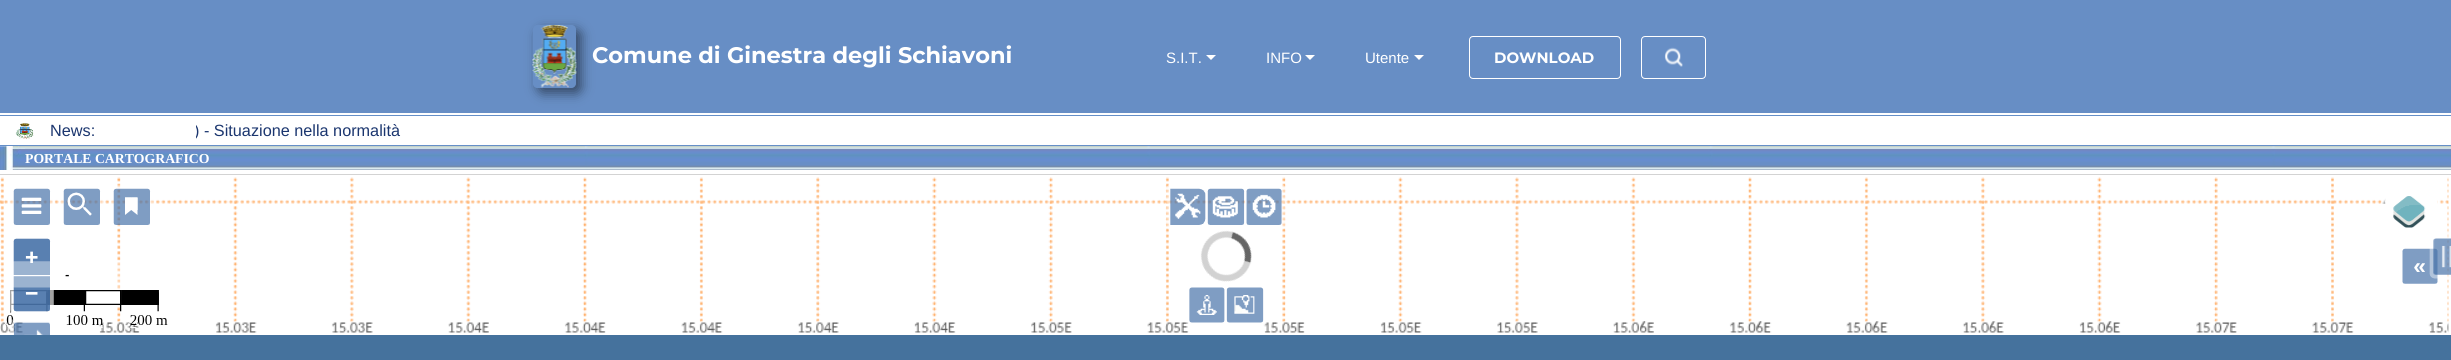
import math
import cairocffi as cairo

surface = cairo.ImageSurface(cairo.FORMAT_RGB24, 2451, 360)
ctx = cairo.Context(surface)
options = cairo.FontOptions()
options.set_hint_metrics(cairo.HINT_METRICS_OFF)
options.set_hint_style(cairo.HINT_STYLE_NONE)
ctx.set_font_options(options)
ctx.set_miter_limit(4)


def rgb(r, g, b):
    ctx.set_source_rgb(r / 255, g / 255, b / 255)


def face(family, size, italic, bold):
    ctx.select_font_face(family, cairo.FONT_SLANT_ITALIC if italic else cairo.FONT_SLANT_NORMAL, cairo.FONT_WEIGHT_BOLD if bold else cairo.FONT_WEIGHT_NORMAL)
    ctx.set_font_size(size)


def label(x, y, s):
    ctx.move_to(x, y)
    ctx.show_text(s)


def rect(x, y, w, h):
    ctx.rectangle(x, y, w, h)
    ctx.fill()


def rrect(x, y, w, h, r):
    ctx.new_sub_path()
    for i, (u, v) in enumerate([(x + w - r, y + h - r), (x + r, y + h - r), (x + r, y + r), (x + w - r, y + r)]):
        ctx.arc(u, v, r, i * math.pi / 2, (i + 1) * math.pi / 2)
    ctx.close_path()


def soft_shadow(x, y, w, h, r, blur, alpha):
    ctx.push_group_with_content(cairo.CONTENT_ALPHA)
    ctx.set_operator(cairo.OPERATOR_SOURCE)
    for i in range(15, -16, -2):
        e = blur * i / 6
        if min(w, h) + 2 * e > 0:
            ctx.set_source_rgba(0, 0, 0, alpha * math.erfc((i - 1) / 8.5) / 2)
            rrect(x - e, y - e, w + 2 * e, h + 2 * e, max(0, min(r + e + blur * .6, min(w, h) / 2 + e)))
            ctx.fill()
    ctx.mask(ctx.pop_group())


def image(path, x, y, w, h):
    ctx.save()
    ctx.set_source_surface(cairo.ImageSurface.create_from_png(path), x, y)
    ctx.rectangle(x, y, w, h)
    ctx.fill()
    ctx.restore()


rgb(255, 255, 255)
ctx.paint()
rgb(103, 142, 197)
rect(0, 0, 2451, 113)
ctx.save()
ctx.set_fill_rule(cairo.FILL_RULE_EVEN_ODD)
ctx.new_path()
ctx.move_to(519, 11)
ctx.line_to(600, 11)
ctx.line_to(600, 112)
ctx.line_to(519, 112)
ctx.close_path()
ctx.move_to(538, 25)
ctx.line_to(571, 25)
ctx.curve_to(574, 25, 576, 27, 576, 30)
ctx.line_to(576, 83)
ctx.curve_to(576, 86, 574, 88, 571, 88)
ctx.line_to(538, 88)
ctx.curve_to(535, 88, 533, 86, 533, 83)
ctx.line_to(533, 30)
ctx.curve_to(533, 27, 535, 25, 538, 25)
ctx.close_path()
ctx.clip()
rgb(0, 0, 0)
soft_shadow(538, 30, 43, 63, 5, 6, 0.5)
ctx.restore()
image('image0.png', 532, 25, 45, 63)
face('Montserrat', 22.5, 0, 1)
rgb(255, 255, 255)
label(592, 63, 'Comune di Ginestra degli Schiavoni')
face('Liberation Sans', 15, 0, 0)
label(1166, 63, 'S.I.T.')
ctx.new_path()
ctx.move_to(1206, 55)
ctx.line_to(1216, 55)
ctx.line_to(1211, 60)
ctx.close_path()
ctx.fill()
label(1266, 63, 'INFO')
ctx.new_path()
ctx.move_to(1305, 55)
ctx.line_to(1315, 55)
ctx.line_to(1310, 60)
ctx.close_path()
ctx.fill()
label(1365, 63, 'Utente')
ctx.new_path()
ctx.move_to(1414, 55)
ctx.line_to(1424, 55)
ctx.line_to(1419, 60)
ctx.close_path()
ctx.fill()
rrect(1469.5, 36.5, 151, 42, 3.5)
ctx.set_line_width(1)
ctx.stroke()
face('Montserrat', 15, 0, 1)
label(1494, 63, 'DOWNLOAD')
rrect(1641.5, 36.5, 64, 42, 3.5)
ctx.stroke()
image('image1.png', 1664, 47, 19, 20)
rgb(101, 143, 200)
rect(0, 115, 2451, 1)
image('image2.png', 15, 123, 19, 16)
face('Liberation Sans', 16.25, 0, 0)
rgb(27, 54, 111)
label(50, 136, 'News:')
ctx.save()
ctx.rectangle(196, 121, 2207, 19)
ctx.clip()
label(194, 136, ') - Situazione nella normalità')
ctx.restore()
rgb(101, 143, 200)
rect(0, 145, 2451, 1)
image('image3.png', 0, 146, 25, 24)
image('image4.png', 25, 146, 2426, 24)
face('Liberation Serif', 13.75, 0, 1)
rgb(255, 255, 255)
label(25, 163, 'PORTALE CARTOGRAFICO')
rgb(211, 211, 211)
rect(0, 174, 2451, 1)
image('image5.png', 0, 177, 2451, 183)
surface.write_to_png('render.png')
